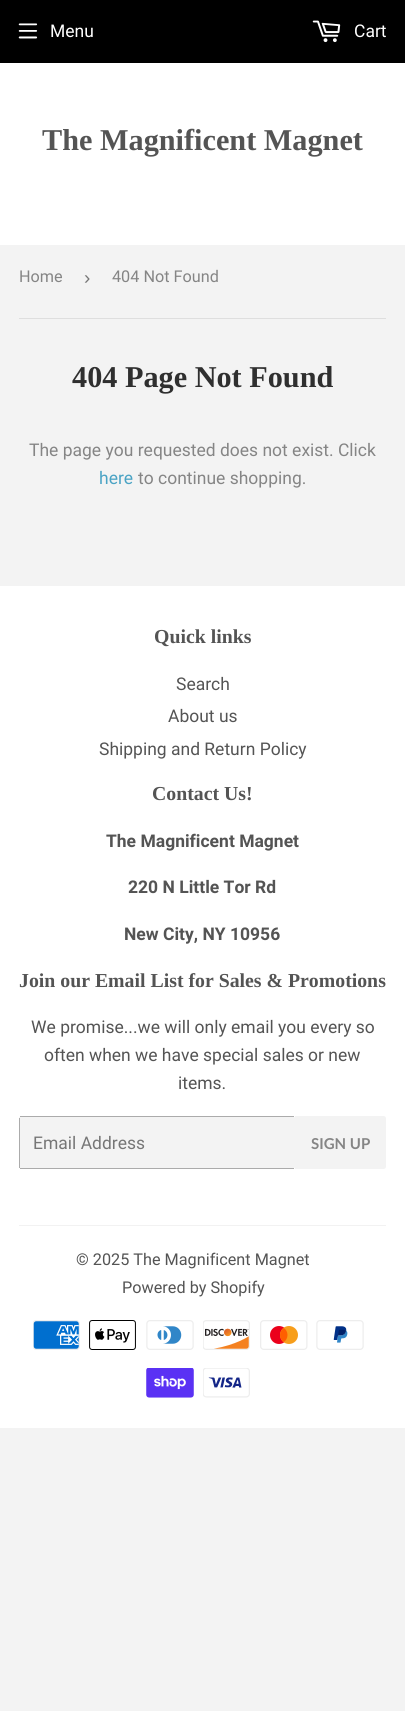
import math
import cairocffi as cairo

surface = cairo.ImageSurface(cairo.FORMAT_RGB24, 405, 1711)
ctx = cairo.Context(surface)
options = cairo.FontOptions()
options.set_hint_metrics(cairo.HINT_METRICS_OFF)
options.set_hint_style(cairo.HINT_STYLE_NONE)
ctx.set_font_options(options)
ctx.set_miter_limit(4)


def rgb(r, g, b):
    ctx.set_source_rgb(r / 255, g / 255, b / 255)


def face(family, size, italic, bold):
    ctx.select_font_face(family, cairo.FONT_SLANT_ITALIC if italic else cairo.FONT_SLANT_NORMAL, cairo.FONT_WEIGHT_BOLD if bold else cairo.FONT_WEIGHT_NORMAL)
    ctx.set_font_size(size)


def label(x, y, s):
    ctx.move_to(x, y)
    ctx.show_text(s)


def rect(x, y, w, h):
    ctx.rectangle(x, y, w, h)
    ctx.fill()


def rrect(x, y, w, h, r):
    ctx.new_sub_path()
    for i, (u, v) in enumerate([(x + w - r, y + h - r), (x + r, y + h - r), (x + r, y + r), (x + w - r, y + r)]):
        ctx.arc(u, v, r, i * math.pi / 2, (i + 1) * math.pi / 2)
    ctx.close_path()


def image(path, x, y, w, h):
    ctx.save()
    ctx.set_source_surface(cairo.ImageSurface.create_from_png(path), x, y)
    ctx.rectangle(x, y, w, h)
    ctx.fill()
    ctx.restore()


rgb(243, 243, 243)
ctx.paint()
rgb(0, 0, 0)
rect(0, 0, 405, 63)
image('image0.png', 18, 23, 20, 16)
face('Roboto', 17.5, 0, 0)
rgb(255, 255, 255)
label(50, 37, 'Menu')
image('image1.png', 312, 20, 29, 23)
label(354, 37, 'Cart')
rect(0, 63, 405, 182)
face('Liberation Serif', 30.25, 0, 1)
rgb(84, 84, 84)
label(42, 150, 'The Magnificent Magnet')
rgb(222, 222, 222)
rect(19, 318, 367, 1)
face('Roboto', 16.25, 0, 0)
rgb(133, 133, 133)
label(19, 282, 'Home')
face('Liberation Sans', 19, 0, 0)
rgb(118, 118, 118)
label(84, 284, '›')
face('Roboto', 16.25, 0, 0)
rgb(133, 133, 133)
label(112, 282, '404 Not Found')
face('Liberation Serif', 30.25, 0, 1)
rgb(47, 47, 47)
label(72, 387, '404 Page Not Found')
face('Roboto', 17.5, 0, 0)
rgb(133, 133, 133)
label(29, 456, 'The page you requested does not exist. Click')
rgb(74, 163, 196)
label(99, 484, 'here')
rgb(133, 133, 133)
label(138, 484, 'to continue shopping.')
rgb(255, 255, 255)
rect(0, 586, 405, 842)
face('Liberation Serif', 19.8, 0, 1)
rgb(84, 84, 84)
label(154, 643, 'Quick links')
face('Roboto', 17.5, 0, 0)
label(176, 690, 'Search')
label(168, 722, 'About us')
label(99, 755, 'Shipping and Return Policy')
face('Liberation Serif', 19.8, 0, 1)
label(152, 800, 'Contact Us!')
face('Roboto', 17.5, 0, 1)
label(106, 847, 'The Magnificent Magnet')
label(128, 893, '220 N Little Tor Rd')
label(124, 940, 'New City, NY 10956')
face('Liberation Serif', 19.8, 0, 1)
label(19, 987, 'Join our Email List for Sales & Promotions')
face('Roboto', 17.5, 0, 0)
label(31, 1033, 'We promise...we will only email you every so')
label(44, 1061, 'often when we have special sales or new')
label(178, 1089, 'items.')
rgb(243, 243, 243)
rrect(19, 1116, 276, 53, 2.5)
ctx.fill()
rgb(171, 171, 171)
rect(20, 1116, 274, 1)
rect(20, 1168, 274, 1)
rect(19, 1118, 1, 50)
rgb(118, 118, 118)
label(33, 1149, 'Email Address')
rgb(243, 243, 243)
ctx.new_path()
ctx.move_to(295, 1116)
ctx.line_to(383.5, 1116)
ctx.curve_to(385, 1116, 386, 1117, 386, 1118.5)
ctx.line_to(386, 1166.5)
ctx.curve_to(386, 1168, 385, 1169, 383.5, 1169)
ctx.line_to(295, 1169)
ctx.close_path()
ctx.fill()
face('Lato', 15, 0, 1)
rgb(133, 133, 133)
label(311, 1149, 'SIGN UP')
rgb(242, 242, 242)
rect(19, 1225, 367, 1)
face('Roboto', 16.25, 0, 0)
rgb(84, 84, 84)
label(76, 1265, '© 2025 The Magnificent Magnet')
label(122, 1293, 'Powered by Shopify')
image('image2.png', 33, 1320, 47, 30)
image('image3.png', 89, 1320, 47, 30)
image('image4.png', 146, 1320, 48, 30)
image('image5.png', 203, 1320, 47, 30)
image('image6.png', 260, 1320, 48, 30)
image('image7.png', 316, 1320, 48, 30)
image('image8.png', 146, 1368, 48, 30)
image('image9.png', 203, 1368, 47, 30)
surface.write_to_png('render.png')
